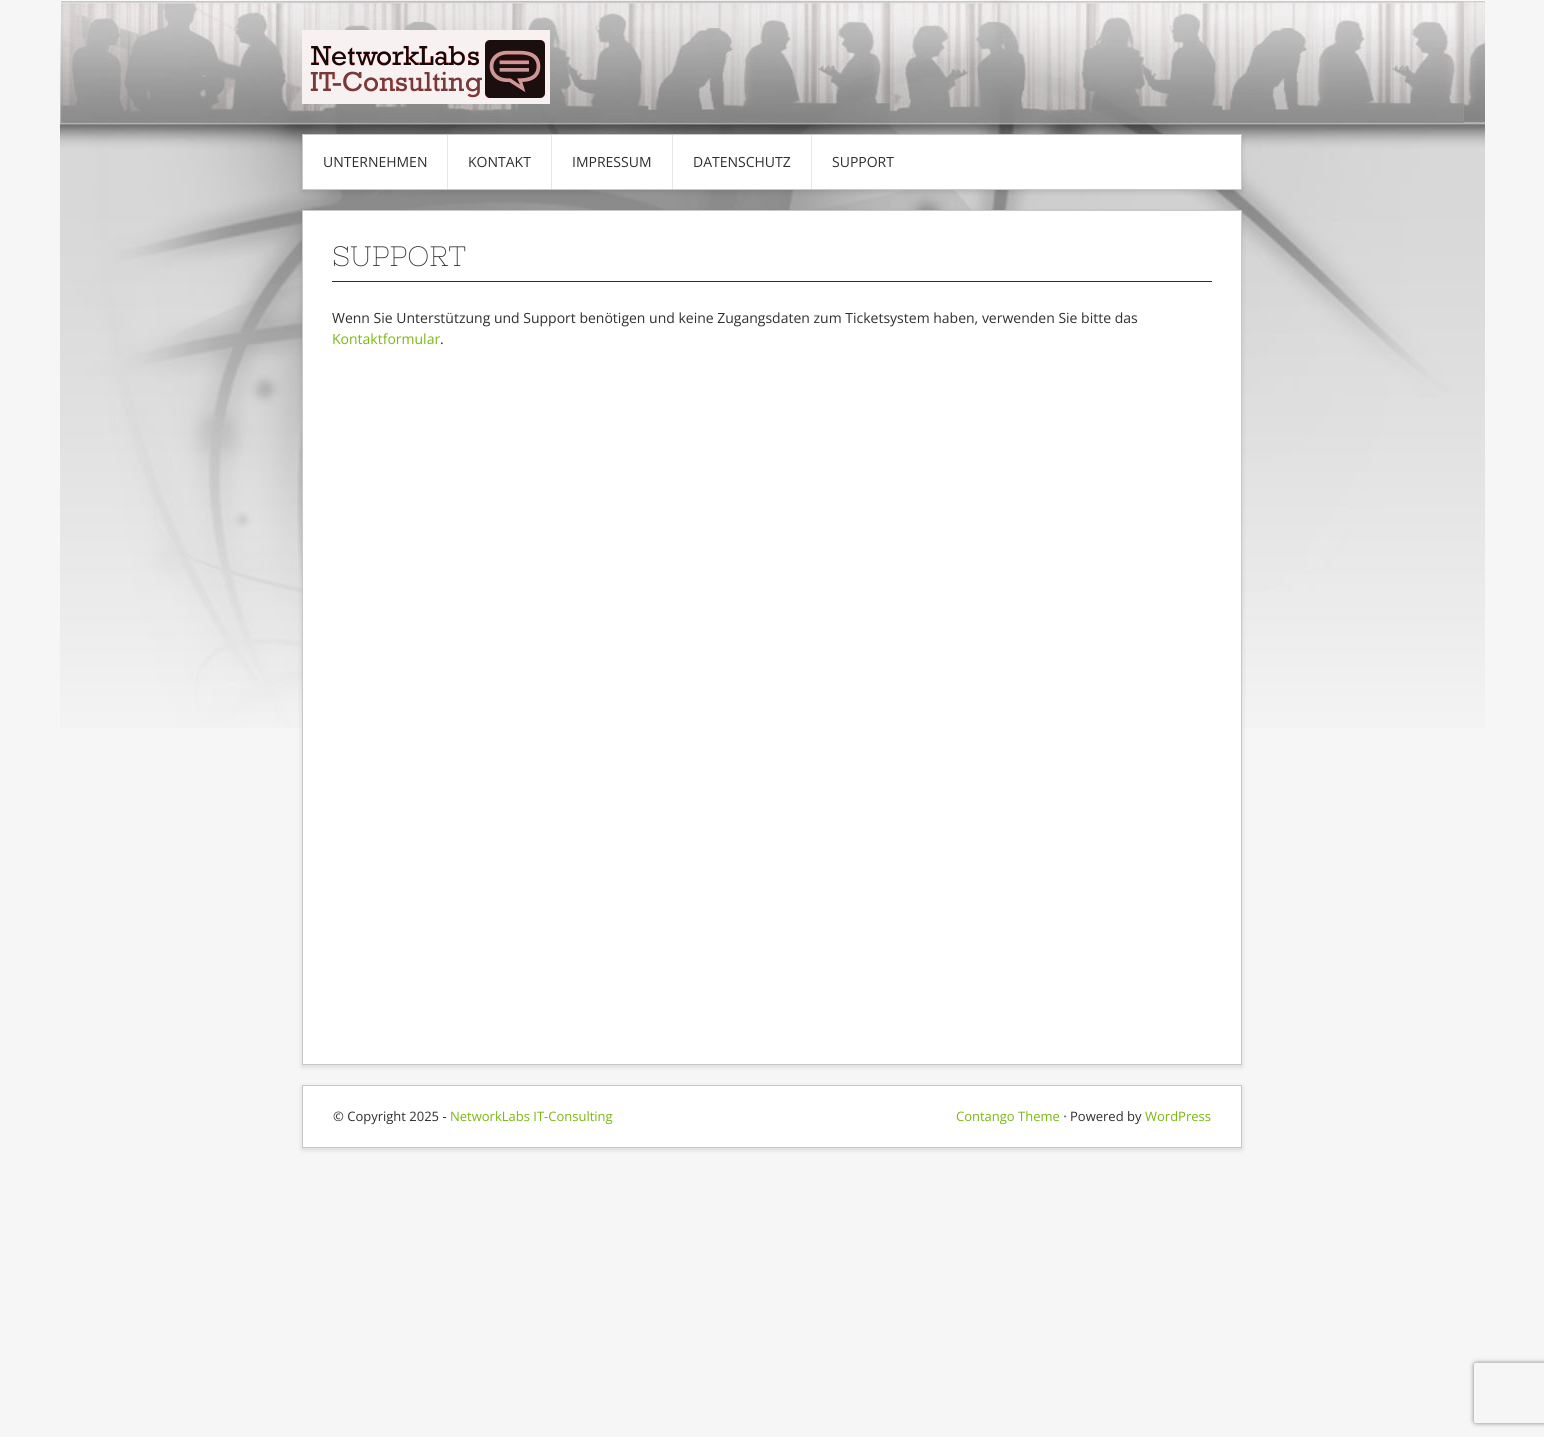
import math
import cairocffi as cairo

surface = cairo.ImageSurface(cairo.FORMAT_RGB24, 1544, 1437)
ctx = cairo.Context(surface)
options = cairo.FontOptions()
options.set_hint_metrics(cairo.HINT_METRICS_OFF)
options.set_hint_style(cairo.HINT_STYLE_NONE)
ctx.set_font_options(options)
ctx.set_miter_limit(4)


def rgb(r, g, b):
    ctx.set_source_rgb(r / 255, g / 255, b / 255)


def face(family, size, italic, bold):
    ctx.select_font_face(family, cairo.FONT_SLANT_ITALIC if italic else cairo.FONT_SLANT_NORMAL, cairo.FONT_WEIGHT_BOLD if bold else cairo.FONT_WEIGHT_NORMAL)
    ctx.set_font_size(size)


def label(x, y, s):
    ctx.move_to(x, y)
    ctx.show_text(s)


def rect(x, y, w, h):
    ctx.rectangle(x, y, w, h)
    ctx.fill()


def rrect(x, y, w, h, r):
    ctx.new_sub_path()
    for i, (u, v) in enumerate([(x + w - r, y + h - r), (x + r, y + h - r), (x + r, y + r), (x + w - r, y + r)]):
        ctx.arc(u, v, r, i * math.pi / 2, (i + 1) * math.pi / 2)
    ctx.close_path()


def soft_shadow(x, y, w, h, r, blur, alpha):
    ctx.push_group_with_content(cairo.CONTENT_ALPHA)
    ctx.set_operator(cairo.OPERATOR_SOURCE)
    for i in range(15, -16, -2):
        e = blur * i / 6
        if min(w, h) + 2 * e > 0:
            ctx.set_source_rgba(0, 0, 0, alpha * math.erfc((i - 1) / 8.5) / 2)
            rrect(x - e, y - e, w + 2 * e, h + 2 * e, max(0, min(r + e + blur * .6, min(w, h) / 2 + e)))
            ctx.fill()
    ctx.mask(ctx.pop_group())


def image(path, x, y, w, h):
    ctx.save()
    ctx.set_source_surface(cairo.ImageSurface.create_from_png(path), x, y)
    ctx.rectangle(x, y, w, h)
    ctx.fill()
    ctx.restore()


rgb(246, 246, 246)
ctx.paint()
image('image0.png', 60, 0, 1425, 728)
image('image1.png', 302, 30, 248, 74)
rgb(50, 50, 50)
soft_shadow(302, 136, 940, 56, 0, 2.5, 0.15)
rgb(255, 255, 255)
ctx.rectangle(302.5, 134.5, 939, 55)
ctx.fill_preserve()
rgb(200, 200, 200)
ctx.set_line_width(1)
ctx.stroke()
rgb(231, 231, 231)
rect(447, 135, 1, 54)
face('Open Sans', 14, 0, 0)
rgb(47, 47, 47)
label(323, 167, 'UNTERNEHMEN')
rgb(231, 231, 231)
rect(551, 135, 1, 54)
rgb(47, 47, 47)
label(468, 167, 'KONTAKT')
rgb(231, 231, 231)
rect(672, 135, 1, 54)
rgb(47, 47, 47)
label(572, 167, 'IMPRESSUM')
rgb(231, 231, 231)
rect(811, 135, 1, 54)
rgb(47, 47, 47)
label(693, 167, 'DATENSCHUTZ')
label(832, 167, 'SUPPORT')
rgb(50, 50, 50)
soft_shadow(302, 212, 940, 855, 0, 2.5, 0.15)
rgb(255, 255, 255)
ctx.rectangle(302.5, 210.5, 939, 854)
ctx.fill_preserve()
rgb(200, 200, 200)
ctx.stroke()
rgb(47, 47, 47)
rect(332, 281, 880, 1)
face('Nixie One', 28, 0, 0)
label(332, 266, 'SUPPORT')
face('Open Sans', 14, 0, 0)
label(332, 323, 'Wenn Sie Unterstützung und Support benötigen und keine Zugangsdaten zum Ticketsystem haben, verwenden Sie bitte das')
rgb(122, 184, 14)
label(332, 344, 'Kontaktformular')
rgb(47, 47, 47)
label(440, 344, '.')
rgb(50, 50, 50)
soft_shadow(302, 1087, 940, 63, 0, 2.5, 0.15)
rgb(255, 255, 255)
ctx.rectangle(302.5, 1085.5, 939, 62)
ctx.fill_preserve()
rgb(200, 200, 200)
ctx.stroke()
face('Open Sans', 13, 0, 0)
rgb(47, 47, 47)
label(333, 1121, '© Copyright 2025 -')
rgb(122, 184, 14)
label(450, 1121, 'NetworkLabs IT-Consulting')
label(956, 1121, 'Contango Theme')
face('DejaVu Sans', 13, 0, 0)
rgb(47, 47, 47)
label(1063, 1121, '⋅')
face('Open Sans', 13, 0, 0)
label(1070, 1121, 'Powered by')
rgb(122, 184, 14)
label(1145, 1121, 'WordPress')
ctx.save()
ctx.set_fill_rule(cairo.FILL_RULE_EVEN_ODD)
ctx.new_path()
ctx.move_to(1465, 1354)
ctx.line_to(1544, 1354)
ctx.line_to(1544, 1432)
ctx.line_to(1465, 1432)
ctx.close_path()
ctx.move_to(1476, 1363)
ctx.line_to(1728, 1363)
ctx.curve_to(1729, 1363, 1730, 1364, 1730, 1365)
ctx.line_to(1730, 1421)
ctx.curve_to(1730, 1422, 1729, 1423, 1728, 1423)
ctx.line_to(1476, 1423)
ctx.curve_to(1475, 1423, 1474, 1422, 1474, 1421)
ctx.line_to(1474, 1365)
ctx.curve_to(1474, 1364, 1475, 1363, 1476, 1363)
ctx.close_path()
ctx.clip()
rgb(128, 128, 128)
soft_shadow(1474, 1363, 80, 60, 2, 2.5, 1)
ctx.restore()
surface.write_to_png('render.png')
